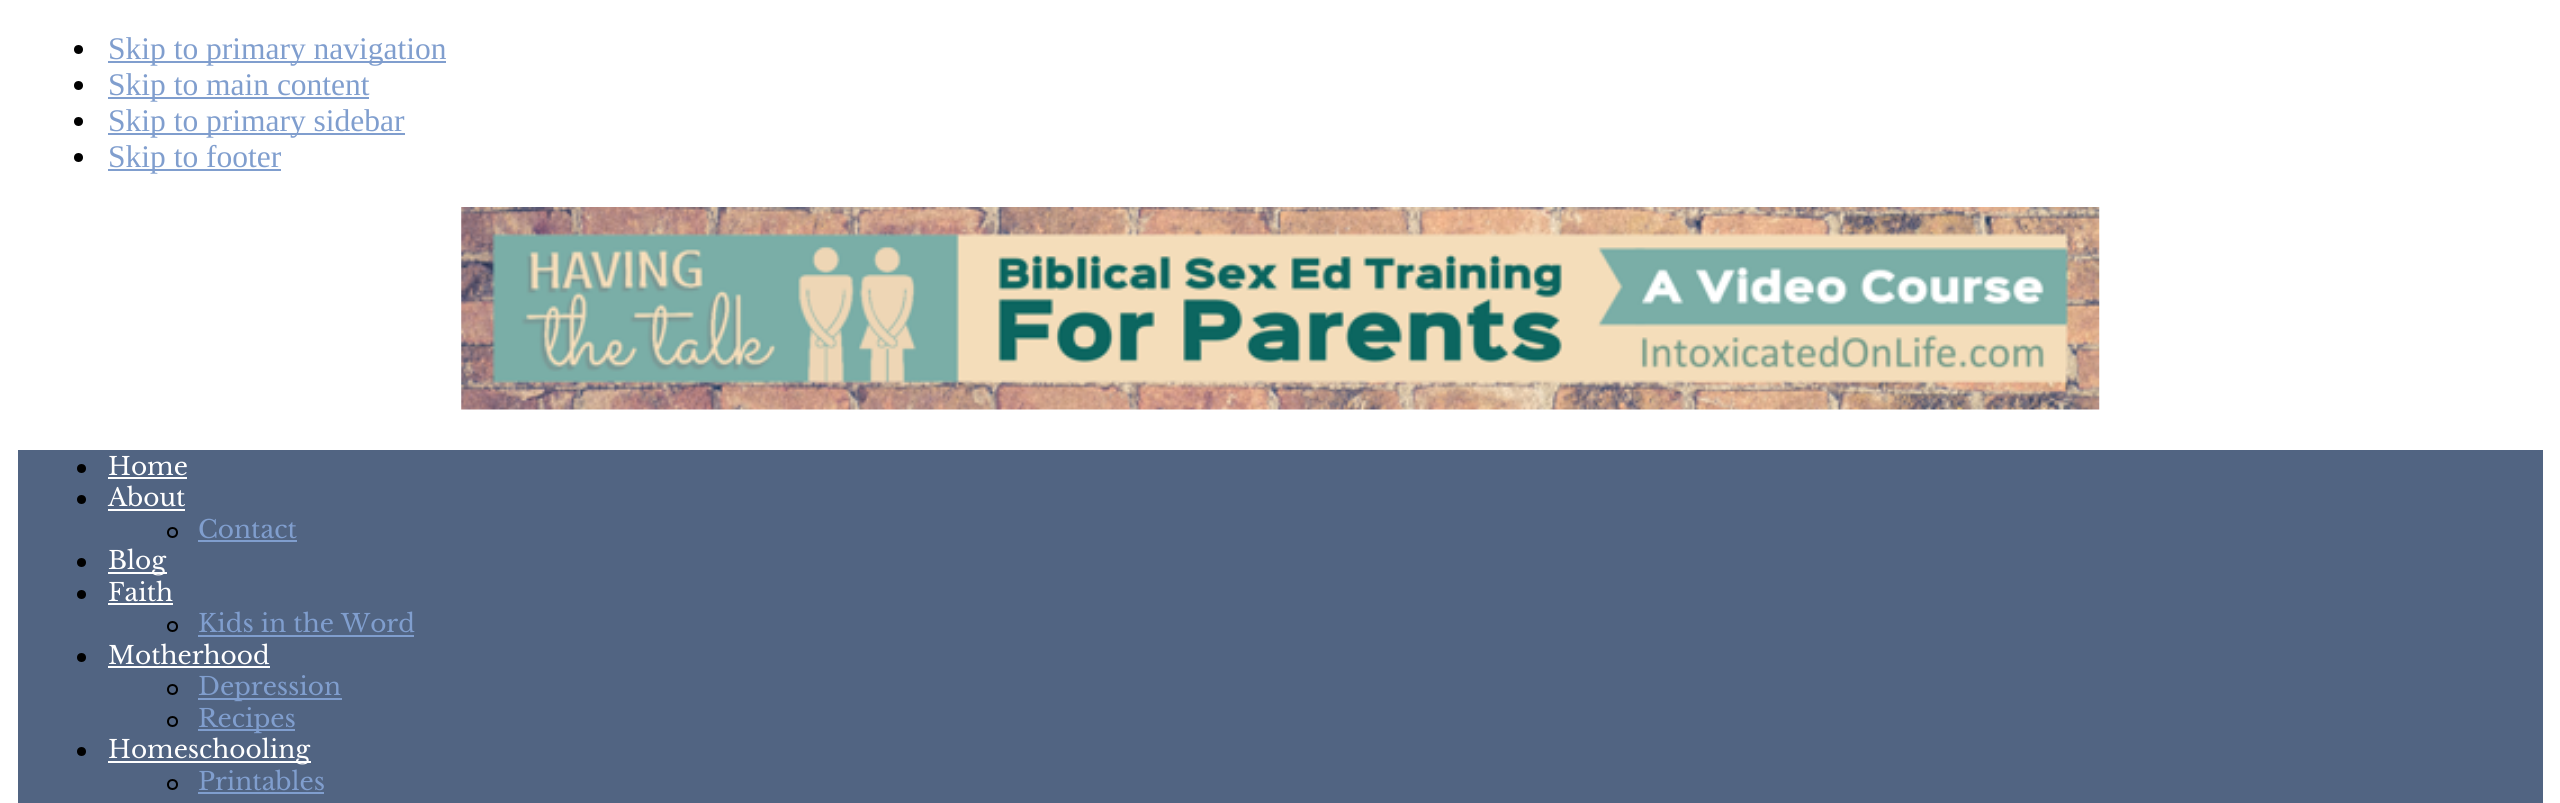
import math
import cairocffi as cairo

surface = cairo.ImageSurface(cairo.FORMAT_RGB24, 2560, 803)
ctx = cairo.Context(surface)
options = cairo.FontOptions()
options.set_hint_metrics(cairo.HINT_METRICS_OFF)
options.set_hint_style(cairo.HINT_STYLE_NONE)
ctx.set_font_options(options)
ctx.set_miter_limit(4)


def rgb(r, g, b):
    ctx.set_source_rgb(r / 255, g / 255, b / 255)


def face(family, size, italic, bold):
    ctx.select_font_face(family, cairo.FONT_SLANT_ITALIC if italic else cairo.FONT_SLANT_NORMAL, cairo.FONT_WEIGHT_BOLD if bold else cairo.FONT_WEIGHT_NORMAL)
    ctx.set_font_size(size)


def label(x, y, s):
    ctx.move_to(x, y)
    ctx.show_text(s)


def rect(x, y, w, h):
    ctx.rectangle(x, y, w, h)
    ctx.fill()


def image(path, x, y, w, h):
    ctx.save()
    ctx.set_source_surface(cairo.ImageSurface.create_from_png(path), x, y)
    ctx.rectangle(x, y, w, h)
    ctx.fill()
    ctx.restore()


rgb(255, 255, 255)
ctx.paint()
rgb(0, 0, 0)
ctx.arc(78.5, 49.5, 4.5, 0, 2 * math.pi)
ctx.fill()
rgb(128, 158, 206)
rect(108, 61, 338, 2)
face('Liberation Serif', 31.5, 0, 0)
label(108, 59, 'Skip to primary navigation')
rgb(0, 0, 0)
ctx.new_path()
ctx.arc(78.5, 85.5, 4.5, 0, 2 * math.pi)
ctx.fill()
rgb(128, 158, 206)
rect(108, 97, 261, 2)
label(108, 95, 'Skip to main content')
rgb(0, 0, 0)
ctx.new_path()
ctx.arc(78.5, 121.5, 4.5, 0, 2 * math.pi)
ctx.fill()
rgb(128, 158, 206)
rect(108, 133, 297, 2)
label(108, 131, 'Skip to primary sidebar')
rgb(0, 0, 0)
ctx.new_path()
ctx.arc(78.5, 157.5, 4.5, 0, 2 * math.pi)
ctx.fill()
rgb(128, 158, 206)
rect(108, 169, 173, 2)
label(108, 167, 'Skip to footer')
image('image0.png', 461, 207, 1639, 203)
rgb(81, 100, 130)
rect(18, 450, 2525, 353)
rgb(0, 0, 0)
ctx.arc(81.5, 468.5, 4.5, 0, 2 * math.pi)
ctx.fill()
face('Libre Baskerville', 24.75, 0, 0)
rgb(255, 255, 255)
label(108, 475, 'Home')
rect(108, 477, 79, 2)
rgb(0, 0, 0)
ctx.new_path()
ctx.arc(81.5, 499.5, 4.5, 0, 2 * math.pi)
ctx.fill()
rgb(255, 255, 255)
label(108, 506, 'About')
rect(108, 509, 77, 2)
ctx.new_path()
ctx.arc(172.5, 532.5, 4.5, 0, 2 * math.pi)
rgb(0, 0, 0)
ctx.stroke()
rgb(128, 158, 206)
label(198, 538, 'Contact')
rect(198, 540, 99, 2)
rgb(0, 0, 0)
ctx.new_path()
ctx.arc(81.5, 562.5, 4.5, 0, 2 * math.pi)
ctx.fill()
rgb(255, 255, 255)
rect(108, 572, 59, 2)
label(108, 569, 'Blog')
rgb(0, 0, 0)
ctx.new_path()
ctx.arc(81.5, 594.5, 4.5, 0, 2 * math.pi)
ctx.fill()
rgb(255, 255, 255)
label(108, 601, 'Faith')
rect(108, 603, 65, 2)
ctx.new_path()
ctx.arc(172.5, 626.5, 4.5, 0, 2 * math.pi)
rgb(0, 0, 0)
ctx.stroke()
rgb(128, 158, 206)
label(198, 632, 'Kids in the Word')
rect(198, 635, 216, 2)
rgb(0, 0, 0)
ctx.new_path()
ctx.arc(81.5, 657.5, 4.5, 0, 2 * math.pi)
ctx.fill()
rgb(255, 255, 255)
label(108, 664, 'Motherhood')
rect(108, 666, 162, 2)
ctx.new_path()
ctx.arc(172.5, 689.5, 4.5, 0, 2 * math.pi)
rgb(0, 0, 0)
ctx.stroke()
rgb(128, 158, 206)
rect(198, 698, 144, 2)
label(198, 695, 'Depression')
ctx.new_path()
ctx.arc(172.5, 721.5, 4.5, 0, 2 * math.pi)
rgb(0, 0, 0)
ctx.stroke()
rgb(128, 158, 206)
rect(198, 729, 97, 2)
label(198, 727, 'Recipes')
rgb(0, 0, 0)
ctx.new_path()
ctx.arc(81.5, 751.5, 4.5, 0, 2 * math.pi)
ctx.fill()
rgb(255, 255, 255)
rect(108, 761, 203, 2)
label(108, 758, 'Homeschooling')
ctx.new_path()
ctx.arc(172.5, 784.5, 4.5, 0, 2 * math.pi)
rgb(0, 0, 0)
ctx.stroke()
rgb(128, 158, 206)
label(198, 790, 'Printables')
rect(198, 792, 126, 2)
surface.write_to_png('render.png')
